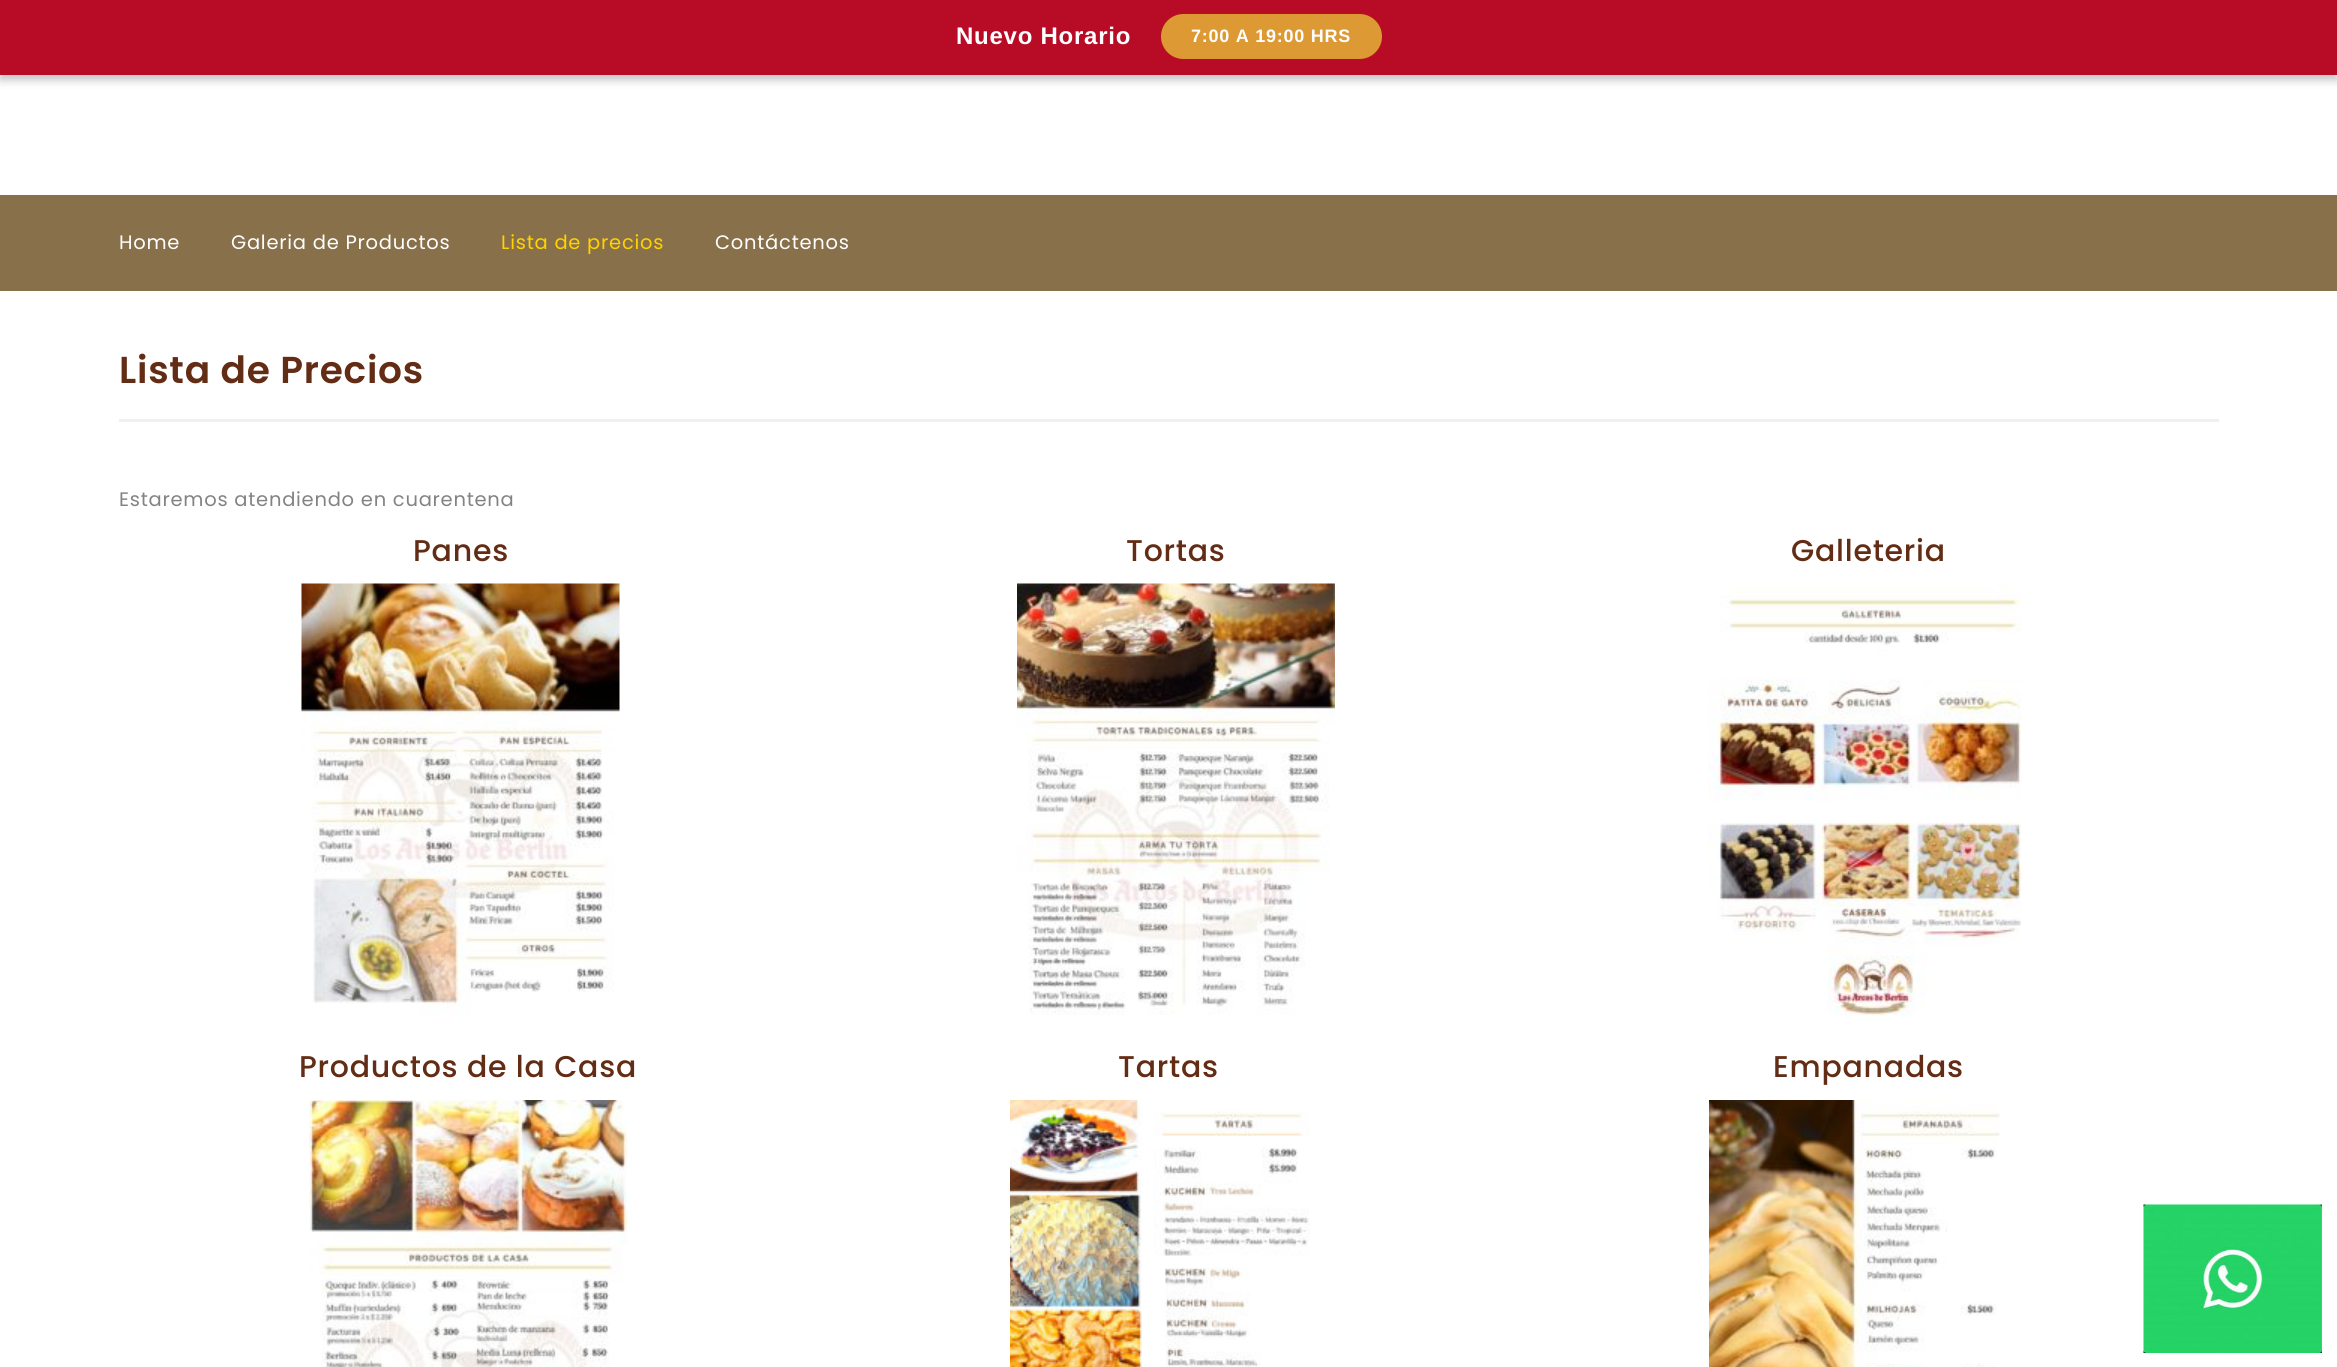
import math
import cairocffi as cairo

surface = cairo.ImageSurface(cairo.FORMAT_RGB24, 2337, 1367)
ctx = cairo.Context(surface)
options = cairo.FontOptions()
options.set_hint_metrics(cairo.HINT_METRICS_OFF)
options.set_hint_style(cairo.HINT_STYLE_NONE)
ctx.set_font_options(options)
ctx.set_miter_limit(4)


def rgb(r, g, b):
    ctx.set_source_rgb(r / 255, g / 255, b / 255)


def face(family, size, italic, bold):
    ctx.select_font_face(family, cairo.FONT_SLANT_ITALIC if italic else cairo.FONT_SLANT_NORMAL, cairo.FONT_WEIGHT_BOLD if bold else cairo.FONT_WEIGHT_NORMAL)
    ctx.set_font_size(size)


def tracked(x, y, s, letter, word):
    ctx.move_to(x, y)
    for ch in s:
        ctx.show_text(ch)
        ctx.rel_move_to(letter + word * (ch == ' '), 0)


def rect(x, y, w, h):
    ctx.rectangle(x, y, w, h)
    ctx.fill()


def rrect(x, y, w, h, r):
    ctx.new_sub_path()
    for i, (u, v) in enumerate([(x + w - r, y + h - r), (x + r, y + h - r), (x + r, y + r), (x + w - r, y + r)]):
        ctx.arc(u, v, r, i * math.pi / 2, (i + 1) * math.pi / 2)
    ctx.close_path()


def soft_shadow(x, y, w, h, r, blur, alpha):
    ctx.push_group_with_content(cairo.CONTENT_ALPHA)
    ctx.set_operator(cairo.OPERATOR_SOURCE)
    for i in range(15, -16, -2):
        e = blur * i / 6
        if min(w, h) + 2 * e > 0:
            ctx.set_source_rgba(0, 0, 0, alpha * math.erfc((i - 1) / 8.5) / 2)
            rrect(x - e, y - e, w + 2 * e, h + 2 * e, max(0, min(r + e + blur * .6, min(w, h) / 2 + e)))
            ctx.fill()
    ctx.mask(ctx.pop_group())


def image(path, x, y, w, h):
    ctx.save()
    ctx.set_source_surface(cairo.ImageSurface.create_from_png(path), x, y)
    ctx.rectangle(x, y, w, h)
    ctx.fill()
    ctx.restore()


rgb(255, 255, 255)
ctx.paint()
rgb(53, 53, 52)
soft_shadow(0, 5, 2337, 75, 0, 4.5, 0.3)
rgb(184, 12, 38)
rect(0, 0, 2337, 75)
face('Liberation Sans', 24, 0, 1)
rgb(255, 255, 255)
tracked(956, 44, 'Nuevo Horario', 0.75, 0)
rgb(221, 153, 51)
rrect(1161, 14, 221, 45, 22.5)
ctx.fill()
face('Liberation Sans', 18, 0, 1)
rgb(255, 255, 255)
tracked(1191, 42, '7:00 A 19:00 HRS', 0.75, 0)
rgb(136, 112, 75)
rect(0, 195, 2337, 96)
face('Poppins', 19.5, 0, 0)
rgb(255, 255, 255)
tracked(119, 249, 'Home', 0.75, 0)
tracked(231, 249, 'Galeria de Productos', 0.75, 0)
rgb(255, 210, 0)
tracked(501, 249, 'Lista de precios', 0.75, 0)
rgb(255, 255, 255)
tracked(715, 249, 'Contáctenos', 0.75, 0)
rgb(240, 240, 240)
rect(119, 419, 2100, 3)
face('Poppins SemiBold', 37.5, 0, 0)
rgb(98, 44, 21)
tracked(119, 383, 'Lista de Precios', 0.75, 0)
face('Poppins', 19.5, 0, 0)
rgb(131, 131, 131)
tracked(119, 506, 'Estaremos atendiendo en cuarentena', 0.75, 0)
face('Poppins Medium', 30, 0, 0)
rgb(98, 44, 21)
tracked(413, 561, 'Panes', 0.75, 0)
image('image0.png', 301, 583, 319, 433)
tracked(1126, 561, 'Tortas', 0.75, 0)
image('image1.png', 1017, 583, 318, 432)
tracked(1791, 561, 'Galleteria', 0.75, 0)
image('image2.png', 1708, 584, 314, 433)
tracked(299, 1077, 'Productos de la Casa', 0.75, 0)
image('image3.png', 309, 1100, 318, 267)
tracked(1118, 1077, 'Tartas', 0.75, 0)
image('image4.png', 1010, 1100, 300, 267)
tracked(1773, 1077, 'Empanadas', 0.75, 0)
image('image5.png', 1709, 1100, 291, 267)
image('image6.png', 2143, 1204, 179, 149)
surface.write_to_png('render.png')
